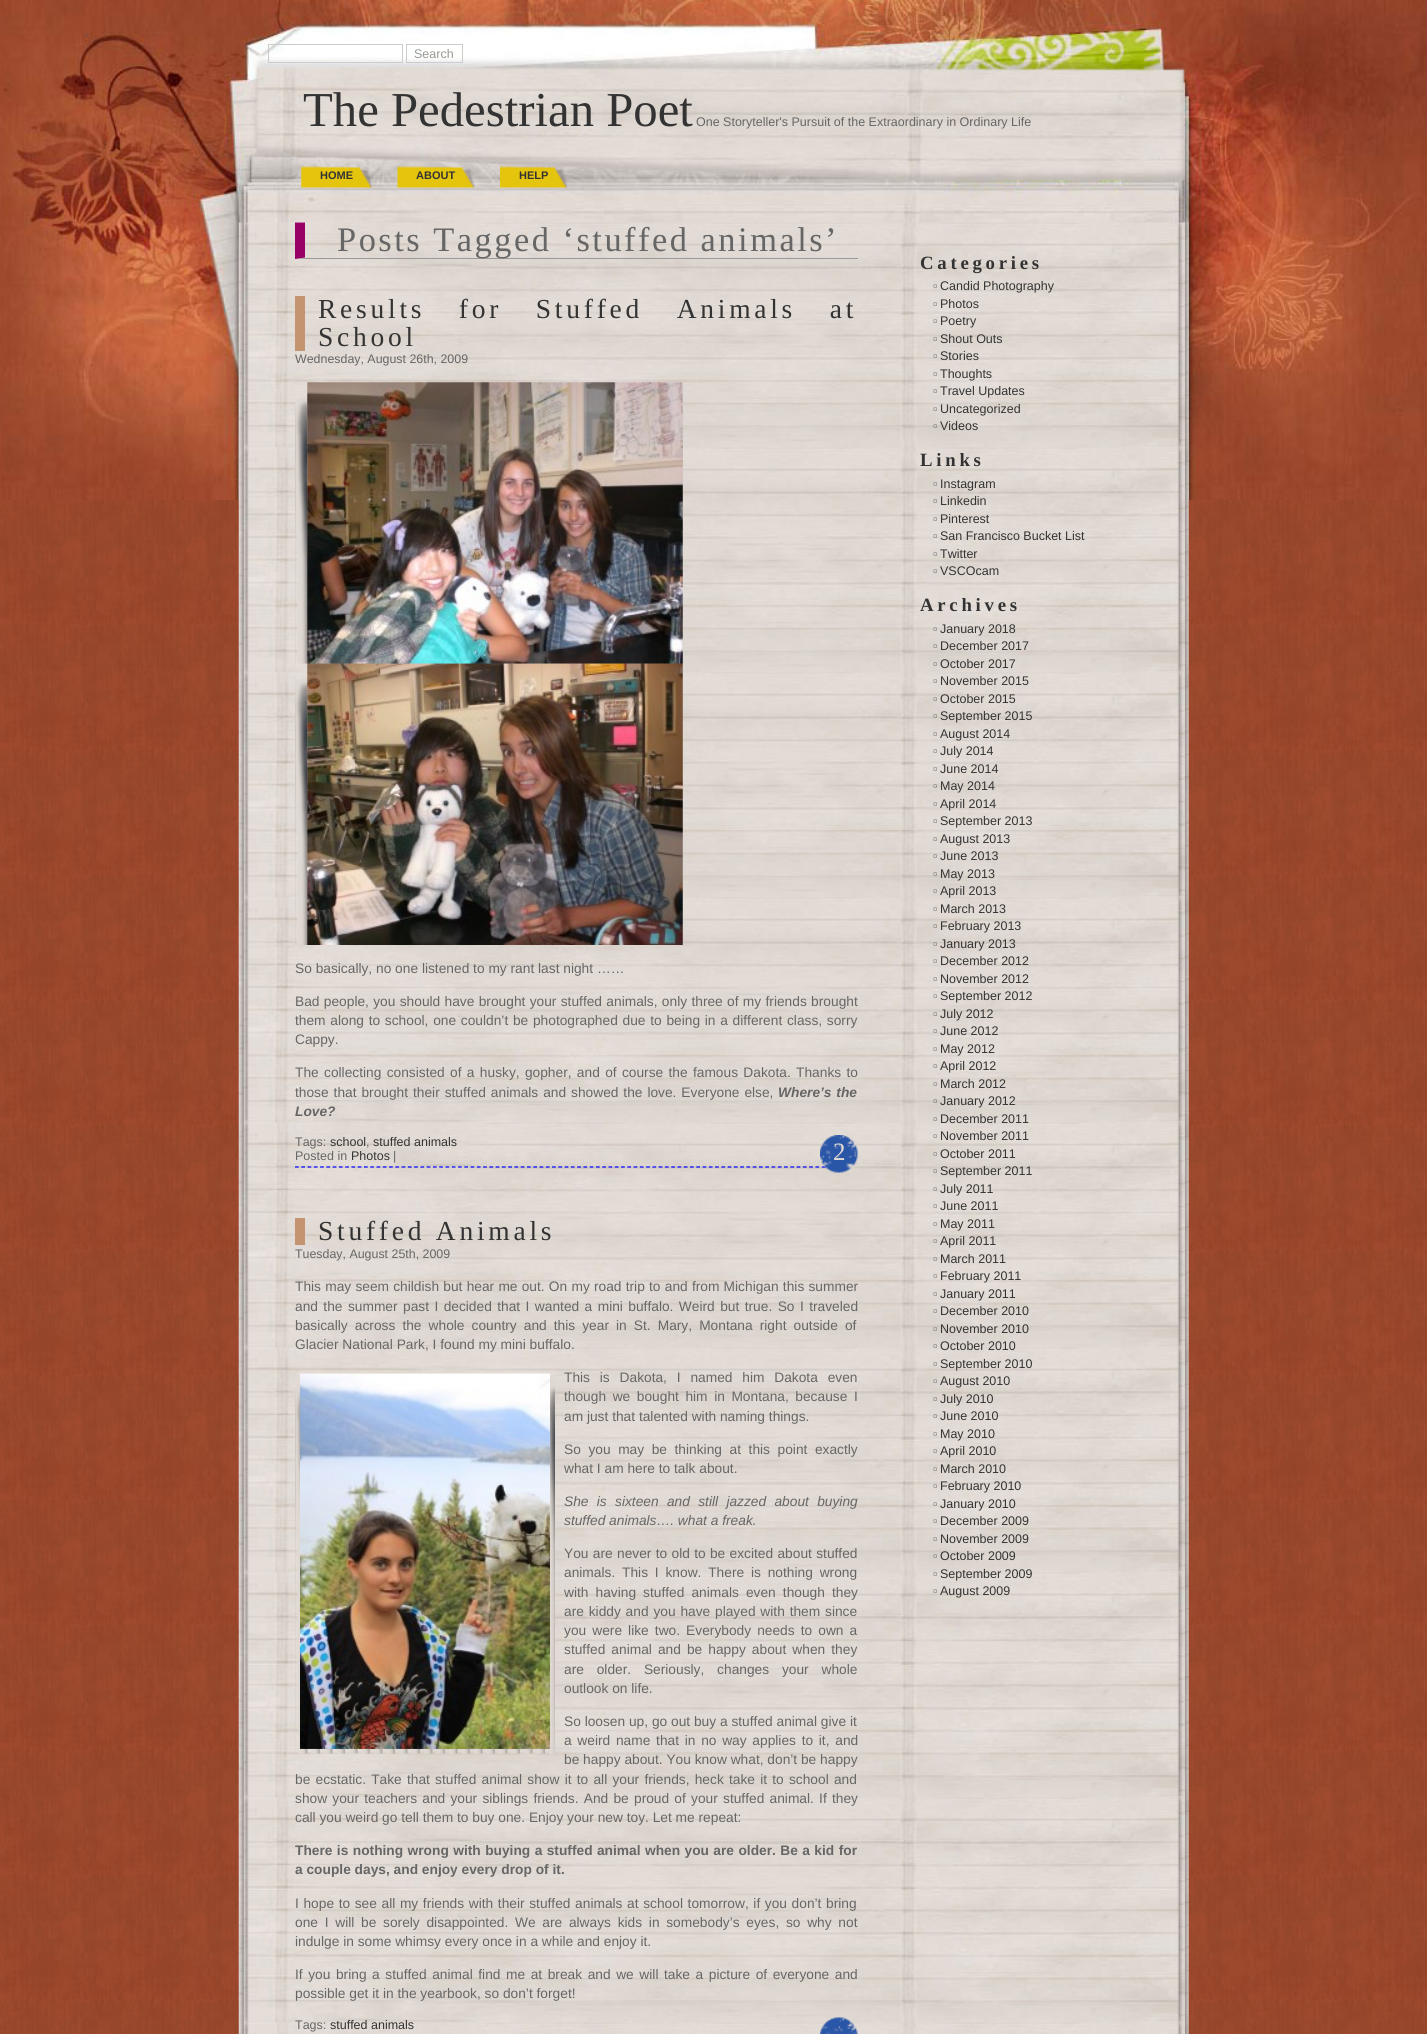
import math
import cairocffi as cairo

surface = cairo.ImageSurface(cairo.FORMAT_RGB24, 1427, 2034)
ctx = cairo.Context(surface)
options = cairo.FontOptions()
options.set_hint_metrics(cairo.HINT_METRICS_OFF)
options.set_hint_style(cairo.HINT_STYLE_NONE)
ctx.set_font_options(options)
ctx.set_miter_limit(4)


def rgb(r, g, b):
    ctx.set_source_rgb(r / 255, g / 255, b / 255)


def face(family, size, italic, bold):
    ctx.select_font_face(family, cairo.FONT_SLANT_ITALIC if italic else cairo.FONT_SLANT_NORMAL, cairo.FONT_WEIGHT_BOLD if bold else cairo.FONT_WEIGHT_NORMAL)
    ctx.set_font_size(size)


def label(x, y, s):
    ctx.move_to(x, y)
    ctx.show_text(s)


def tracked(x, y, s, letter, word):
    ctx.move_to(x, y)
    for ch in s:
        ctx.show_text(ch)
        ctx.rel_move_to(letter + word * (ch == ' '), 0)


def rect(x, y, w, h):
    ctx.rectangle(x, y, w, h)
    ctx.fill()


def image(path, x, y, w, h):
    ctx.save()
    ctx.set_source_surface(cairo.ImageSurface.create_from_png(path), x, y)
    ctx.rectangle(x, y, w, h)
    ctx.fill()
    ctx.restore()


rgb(255, 255, 255)
ctx.paint()
image('image0.png', 0, 500, 1427, 1534)
image('image1.png', 0, 0, 1427, 500)
ctx.rectangle(268.5, 44.5, 134, 18)
rgb(204, 204, 204)
ctx.set_line_width(1)
ctx.stroke()
ctx.rectangle(406.5, 44.5, 56, 18)
ctx.stroke()
face('Liberation Sans', 12.5, 0, 0)
rgb(153, 153, 153)
label(414, 58, 'Search')
face('Liberation Serif', 48.75, 0, 0)
rgb(51, 51, 51)
label(303, 126, 'The Pedestrian Poet')
face('Liberation Sans', 12.5, 0, 0)
rgb(102, 102, 102)
label(696, 126, 'One Storyteller\'s Pursuit of the Extraordinary in Ordinary Life')
image('image2.png', 301, 166, 72, 22)
face('Liberation Sans', 11, 0, 1)
rgb(51, 51, 51)
label(320, 179, 'HOME')
image('image3.png', 397, 166, 78, 22)
label(416, 179, 'ABOUT')
image('image4.png', 500, 166, 68, 22)
label(519, 179, 'HELP')
image('image5.png', 238, 222, 951, 1812)
rgb(153, 153, 153)
ctx.new_path()
ctx.move_to(858, 259)
ctx.line_to(295, 259)
ctx.line_to(305, 258)
ctx.line_to(858, 258)
ctx.close_path()
ctx.fill()
rgb(153, 0, 102)
ctx.new_path()
ctx.move_to(295, 259)
ctx.line_to(295, 222.5)
ctx.line_to(305, 222.5)
ctx.line_to(305, 257.5)
ctx.close_path()
ctx.fill()
face('Liberation Serif', 34.4, 0, 0)
rgb(102, 102, 102)
tracked(337, 251, 'Posts Tagged ‘stuffed animals’', 2.5, 0)
rgb(196, 147, 111)
rect(295, 296, 10, 55)
face('Liberation Serif', 27.5, 0, 0)
rgb(51, 51, 51)
tracked(318, 318, 'Results for Stuffed Animals at', 3.75, 23)
tracked(318, 346, 'School', 3.75, 0)
face('Liberation Sans', 12.4, 0, 0)
rgb(102, 102, 102)
label(295, 363, 'Wednesday, August 26th, 2009')
image('image6.png', 295, 382, 388, 282)
image('image7.png', 307, 382, 376, 282)
image('image8.png', 295, 663, 388, 282)
image('image9.png', 307, 663, 376, 282)
face('Liberation Sans', 13.75, 0, 0)
label(295, 973, 'So basically, no one listened to my rant last night ……')
tracked(295, 1006, 'Bad people, you should have brought your stuffed animals, only three of my friends brought', 0, 0.5)
tracked(295, 1025, 'them along to school, one couldn’t be photographed due to being in a different class, sorry', 0, 0.9)
label(295, 1044, 'Cappy.')
tracked(295, 1077, 'The collecting consisted of a husky, gopher, and of course the famous Dakota. Thanks to', 0, 1.5)
tracked(295, 1097, 'those that brought their stuffed animals and showed the love. Everyone else,', 0, 1.1)
face('Liberation Sans', 13.75, 1, 1)
tracked(778, 1097, 'Where’s the', 0, 1)
label(295, 1116, 'Love?')
ctx.new_path()
ctx.move_to(295, 1167)
ctx.line_to(845, 1167)
rgb(0, 0, 255)
ctx.set_line_width(1.2)
ctx.set_dash([3.75, 2.52])
ctx.stroke()
face('Liberation Sans', 12.5, 0, 0)
rgb(102, 102, 102)
label(295, 1146, 'Tags:')
rgb(51, 51, 51)
label(330, 1146, 'school')
rgb(102, 102, 102)
label(366, 1146, ',')
rgb(51, 51, 51)
label(373, 1146, 'stuffed animals')
rgb(102, 102, 102)
label(295, 1160, 'Posted in')
rgb(51, 51, 51)
label(351, 1160, 'Photos')
rgb(102, 102, 102)
label(393, 1160, '|')
image('image10.png', 820, 1135, 38, 38)
face('Liberation Serif', 25, 0, 0)
rgb(224, 217, 211)
label(833, 1160, '2')
rgb(196, 147, 111)
rect(295, 1218, 10, 27)
face('Liberation Serif', 27.5, 0, 0)
rgb(51, 51, 51)
tracked(318, 1240, 'Stuffed Animals', 3.75, 0)
face('Liberation Sans', 12.4, 0, 0)
rgb(102, 102, 102)
label(295, 1258, 'Tuesday, August 25th, 2009')
face('Liberation Sans', 13.75, 0, 0)
tracked(295, 1291, 'This may seem childish but hear me out. On my road trip to and from Michigan this summer', 0, 0.4)
tracked(295, 1311, 'and the summer past I decided that I wanted a mini buffalo. Weird but true. So I traveled', 0, 1.6)
tracked(295, 1330, 'basically across the whole country and this year in St. Mary, Montana right outside of', 0, 3.25)
label(295, 1349, 'Glacier National Park, I found my mini buffalo.')
image('image11.png', 295, 1373, 260, 381)
image('image12.png', 300, 1373, 250, 376)
tracked(564, 1382, 'This is Dakota, I named him Dakota even', 0, 6)
tracked(564, 1401, 'though we bought him in Montana, because I', 0, 2.75)
label(564, 1421, 'am just that talented with naming things.')
tracked(564, 1454, 'So you may be thinking at this point exactly', 0, 3.75)
label(564, 1473, 'what I am here to talk about.')
face('Liberation Sans', 13.75, 1, 0)
tracked(564, 1506, 'She is sixteen and still jazzed about buying', 0, 4.5)
label(564, 1525, 'stuffed animals…. what a freak.')
face('Liberation Sans', 13.75, 0, 0)
tracked(564, 1558, 'You are never to old to be excited about stuffed', 0, 0.5)
tracked(564, 1577, 'animals. This I know. There is nothing wrong', 0, 3)
tracked(564, 1597, 'with having stuffed animals even though they', 0, 3.25)
tracked(564, 1616, 'are kiddy and you have played with them since', 0, 1)
tracked(564, 1635, 'you were like two. Everybody needs to own a', 0, 2.25)
tracked(564, 1654, 'stuffed animal and be happy about when they', 0, 2.25)
tracked(564, 1674, 'are older. Seriously, changes your whole', 0, 9)
label(564, 1693, 'outlook on life.')
label(564, 1726, 'So loosen up, go out buy a stuffed animal give it')
tracked(564, 1745, 'a weird name that in no way applies to it, and', 0, 1.9)
label(564, 1764, 'be happy about. You know what, don’t be happy')
tracked(295, 1784, 'be ecstatic. Take that stuffed animal show it to all your friends, heck take it to school and', 0, 1.4)
tracked(295, 1803, 'show your teachers and your siblings friends. And be proud of your stuffed animal. If they', 0, 1.4)
label(295, 1822, 'call you weird go tell them to buy one. Enjoy your new toy. Let me repeat:')
face('Liberation Sans', 13.75, 0, 1)
tracked(295, 1855, 'There is nothing wrong with buying a stuffed animal when you are older. Be a kid for', 0, 0.6)
label(295, 1874, 'a couple days, and enjoy every drop of it.')
face('Liberation Sans', 13.75, 0, 0)
tracked(295, 1908, 'I hope to see all my friends with their stuffed animals at school tomorrow, if you don’t bring', 0, 0.8)
tracked(295, 1927, 'one I will be sorely disappointed. We are always kids in somebody’s eyes, so why not', 0, 2.9)
label(295, 1946, 'indulge in some whimsy every once in a while and enjoy it.')
tracked(295, 1979, 'If you bring a stuffed animal find me at break and we will take a picture of everyone and', 0, 1.75)
label(295, 1998, 'possible get it in the yearbook, so don’t forget!')
face('Liberation Sans', 12.5, 0, 0)
label(295, 2029, 'Tags:')
rgb(51, 51, 51)
label(330, 2029, 'stuffed animals')
image('image13.png', 820, 2017, 38, 17)
face('Liberation Serif', 18.75, 0, 1)
tracked(920, 269, 'Categories', 3.75, 0)
face('Liberation Sans', 12.5, 0, 0)
rgb(102, 102, 102)
label(933, 290, '▫')
rgb(51, 51, 51)
label(940, 290, 'Candid Photography')
rgb(102, 102, 102)
label(933, 308, '▫')
rgb(51, 51, 51)
label(940, 308, 'Photos')
rgb(102, 102, 102)
label(933, 325, '▫')
rgb(51, 51, 51)
label(940, 325, 'Poetry')
rgb(102, 102, 102)
label(933, 343, '▫')
rgb(51, 51, 51)
label(940, 343, 'Shout Outs')
rgb(102, 102, 102)
label(933, 360, '▫')
rgb(51, 51, 51)
label(940, 360, 'Stories')
rgb(102, 102, 102)
label(933, 378, '▫')
rgb(51, 51, 51)
label(940, 378, 'Thoughts')
rgb(102, 102, 102)
label(933, 395, '▫')
rgb(51, 51, 51)
label(940, 395, 'Travel Updates')
rgb(102, 102, 102)
label(933, 413, '▫')
rgb(51, 51, 51)
label(940, 413, 'Uncategorized')
rgb(102, 102, 102)
label(933, 430, '▫')
rgb(51, 51, 51)
label(940, 430, 'Videos')
face('Liberation Serif', 18.75, 0, 1)
tracked(920, 466, 'Links', 3.75, 0)
face('Liberation Sans', 12.5, 0, 0)
rgb(102, 102, 102)
label(933, 488, '▫')
rgb(51, 51, 51)
label(940, 488, 'Instagram')
rgb(102, 102, 102)
label(933, 505, '▫')
rgb(51, 51, 51)
label(940, 505, 'Linkedin')
rgb(102, 102, 102)
label(933, 523, '▫')
rgb(51, 51, 51)
label(940, 523, 'Pinterest')
rgb(102, 102, 102)
label(933, 540, '▫')
rgb(51, 51, 51)
label(940, 540, 'San Francisco Bucket List')
rgb(102, 102, 102)
label(933, 558, '▫')
rgb(51, 51, 51)
label(940, 558, 'Twitter')
rgb(102, 102, 102)
label(933, 575, '▫')
rgb(51, 51, 51)
label(940, 575, 'VSCOcam')
face('Liberation Serif', 18.75, 0, 1)
tracked(920, 611, 'Archives', 3.75, 0)
face('Liberation Sans', 12.5, 0, 0)
rgb(102, 102, 102)
label(933, 633, '▫')
rgb(51, 51, 51)
label(940, 633, 'January 2018')
rgb(102, 102, 102)
label(933, 650, '▫')
rgb(51, 51, 51)
label(940, 650, 'December 2017')
rgb(102, 102, 102)
label(933, 668, '▫')
rgb(51, 51, 51)
label(940, 668, 'October 2017')
rgb(102, 102, 102)
label(933, 685, '▫')
rgb(51, 51, 51)
label(940, 685, 'November 2015')
rgb(102, 102, 102)
label(933, 703, '▫')
rgb(51, 51, 51)
label(940, 703, 'October 2015')
rgb(102, 102, 102)
label(933, 720, '▫')
rgb(51, 51, 51)
label(940, 720, 'September 2015')
rgb(102, 102, 102)
label(933, 738, '▫')
rgb(51, 51, 51)
label(940, 738, 'August 2014')
rgb(102, 102, 102)
label(933, 755, '▫')
rgb(51, 51, 51)
label(940, 755, 'July 2014')
rgb(102, 102, 102)
label(933, 773, '▫')
rgb(51, 51, 51)
label(940, 773, 'June 2014')
rgb(102, 102, 102)
label(933, 790, '▫')
rgb(51, 51, 51)
label(940, 790, 'May 2014')
rgb(102, 102, 102)
label(933, 808, '▫')
rgb(51, 51, 51)
label(940, 808, 'April 2014')
rgb(102, 102, 102)
label(933, 825, '▫')
rgb(51, 51, 51)
label(940, 825, 'September 2013')
rgb(102, 102, 102)
label(933, 843, '▫')
rgb(51, 51, 51)
label(940, 843, 'August 2013')
rgb(102, 102, 102)
label(933, 860, '▫')
rgb(51, 51, 51)
label(940, 860, 'June 2013')
rgb(102, 102, 102)
label(933, 878, '▫')
rgb(51, 51, 51)
label(940, 878, 'May 2013')
rgb(102, 102, 102)
label(933, 895, '▫')
rgb(51, 51, 51)
label(940, 895, 'April 2013')
rgb(102, 102, 102)
label(933, 913, '▫')
rgb(51, 51, 51)
label(940, 913, 'March 2013')
rgb(102, 102, 102)
label(933, 930, '▫')
rgb(51, 51, 51)
label(940, 930, 'February 2013')
rgb(102, 102, 102)
label(933, 948, '▫')
rgb(51, 51, 51)
label(940, 948, 'January 2013')
rgb(102, 102, 102)
label(933, 965, '▫')
rgb(51, 51, 51)
label(940, 965, 'December 2012')
rgb(102, 102, 102)
label(933, 983, '▫')
rgb(51, 51, 51)
label(940, 983, 'November 2012')
rgb(102, 102, 102)
label(933, 1000, '▫')
rgb(51, 51, 51)
label(940, 1000, 'September 2012')
rgb(102, 102, 102)
label(933, 1018, '▫')
rgb(51, 51, 51)
label(940, 1018, 'July 2012')
rgb(102, 102, 102)
label(933, 1035, '▫')
rgb(51, 51, 51)
label(940, 1035, 'June 2012')
rgb(102, 102, 102)
label(933, 1053, '▫')
rgb(51, 51, 51)
label(940, 1053, 'May 2012')
rgb(102, 102, 102)
label(933, 1070, '▫')
rgb(51, 51, 51)
label(940, 1070, 'April 2012')
rgb(102, 102, 102)
label(933, 1088, '▫')
rgb(51, 51, 51)
label(940, 1088, 'March 2012')
rgb(102, 102, 102)
label(933, 1105, '▫')
rgb(51, 51, 51)
label(940, 1105, 'January 2012')
rgb(102, 102, 102)
label(933, 1123, '▫')
rgb(51, 51, 51)
label(940, 1123, 'December 2011')
rgb(102, 102, 102)
label(933, 1140, '▫')
rgb(51, 51, 51)
label(940, 1140, 'November 2011')
rgb(102, 102, 102)
label(933, 1158, '▫')
rgb(51, 51, 51)
label(940, 1158, 'October 2011')
rgb(102, 102, 102)
label(933, 1175, '▫')
rgb(51, 51, 51)
label(940, 1175, 'September 2011')
rgb(102, 102, 102)
label(933, 1193, '▫')
rgb(51, 51, 51)
label(940, 1193, 'July 2011')
rgb(102, 102, 102)
label(933, 1210, '▫')
rgb(51, 51, 51)
label(940, 1210, 'June 2011')
rgb(102, 102, 102)
label(933, 1228, '▫')
rgb(51, 51, 51)
label(940, 1228, 'May 2011')
rgb(102, 102, 102)
label(933, 1245, '▫')
rgb(51, 51, 51)
label(940, 1245, 'April 2011')
rgb(102, 102, 102)
label(933, 1263, '▫')
rgb(51, 51, 51)
label(940, 1263, 'March 2011')
rgb(102, 102, 102)
label(933, 1280, '▫')
rgb(51, 51, 51)
label(940, 1280, 'February 2011')
rgb(102, 102, 102)
label(933, 1298, '▫')
rgb(51, 51, 51)
label(940, 1298, 'January 2011')
rgb(102, 102, 102)
label(933, 1315, '▫')
rgb(51, 51, 51)
label(940, 1315, 'December 2010')
rgb(102, 102, 102)
label(933, 1333, '▫')
rgb(51, 51, 51)
label(940, 1333, 'November 2010')
rgb(102, 102, 102)
label(933, 1350, '▫')
rgb(51, 51, 51)
label(940, 1350, 'October 2010')
rgb(102, 102, 102)
label(933, 1368, '▫')
rgb(51, 51, 51)
label(940, 1368, 'September 2010')
rgb(102, 102, 102)
label(933, 1385, '▫')
rgb(51, 51, 51)
label(940, 1385, 'August 2010')
rgb(102, 102, 102)
label(933, 1403, '▫')
rgb(51, 51, 51)
label(940, 1403, 'July 2010')
rgb(102, 102, 102)
label(933, 1420, '▫')
rgb(51, 51, 51)
label(940, 1420, 'June 2010')
rgb(102, 102, 102)
label(933, 1438, '▫')
rgb(51, 51, 51)
label(940, 1438, 'May 2010')
rgb(102, 102, 102)
label(933, 1455, '▫')
rgb(51, 51, 51)
label(940, 1455, 'April 2010')
rgb(102, 102, 102)
label(933, 1473, '▫')
rgb(51, 51, 51)
label(940, 1473, 'March 2010')
rgb(102, 102, 102)
label(933, 1490, '▫')
rgb(51, 51, 51)
label(940, 1490, 'February 2010')
rgb(102, 102, 102)
label(933, 1508, '▫')
rgb(51, 51, 51)
label(940, 1508, 'January 2010')
rgb(102, 102, 102)
label(933, 1525, '▫')
rgb(51, 51, 51)
label(940, 1525, 'December 2009')
rgb(102, 102, 102)
label(933, 1543, '▫')
rgb(51, 51, 51)
label(940, 1543, 'November 2009')
rgb(102, 102, 102)
label(933, 1560, '▫')
rgb(51, 51, 51)
label(940, 1560, 'October 2009')
rgb(102, 102, 102)
label(933, 1578, '▫')
rgb(51, 51, 51)
label(940, 1578, 'September 2009')
rgb(102, 102, 102)
label(933, 1595, '▫')
rgb(51, 51, 51)
label(940, 1595, 'August 2009')
surface.write_to_png('render.png')
